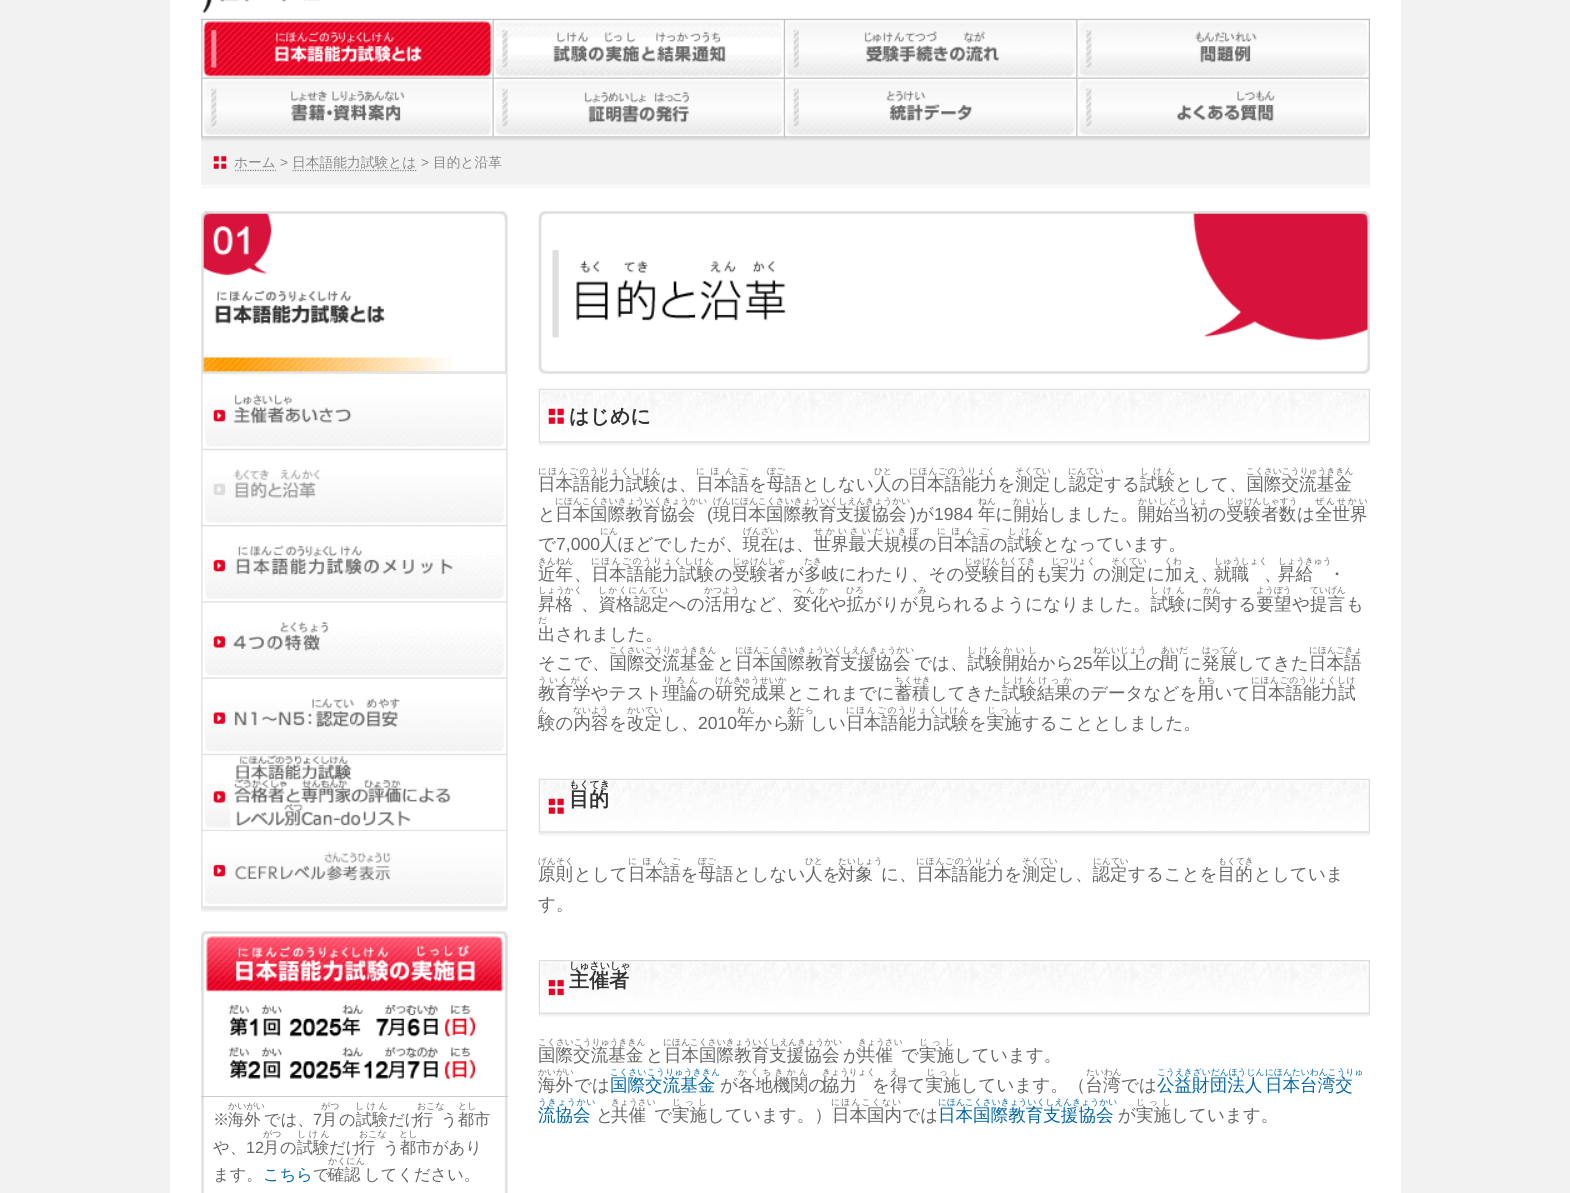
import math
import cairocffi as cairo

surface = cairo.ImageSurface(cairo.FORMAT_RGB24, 1570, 1193)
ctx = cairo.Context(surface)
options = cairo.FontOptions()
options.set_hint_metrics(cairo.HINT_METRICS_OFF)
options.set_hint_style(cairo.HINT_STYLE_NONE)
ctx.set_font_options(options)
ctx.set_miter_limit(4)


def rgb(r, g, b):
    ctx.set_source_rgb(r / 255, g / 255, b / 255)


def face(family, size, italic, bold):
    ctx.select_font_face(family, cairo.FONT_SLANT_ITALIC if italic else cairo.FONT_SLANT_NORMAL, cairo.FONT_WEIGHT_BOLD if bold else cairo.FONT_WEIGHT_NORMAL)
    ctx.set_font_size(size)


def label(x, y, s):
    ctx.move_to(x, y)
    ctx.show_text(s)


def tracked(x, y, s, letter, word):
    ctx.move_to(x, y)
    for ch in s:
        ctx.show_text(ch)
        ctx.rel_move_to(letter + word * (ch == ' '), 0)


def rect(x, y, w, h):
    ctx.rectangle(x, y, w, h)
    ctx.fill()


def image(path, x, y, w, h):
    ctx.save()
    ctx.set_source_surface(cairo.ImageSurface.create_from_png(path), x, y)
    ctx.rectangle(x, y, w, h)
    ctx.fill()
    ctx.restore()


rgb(242, 242, 242)
ctx.paint()
rgb(255, 255, 255)
rect(170, 0, 1231, 1193)
image('image0.png', 202, 0, 118, 14)
image('image1.png', 201, 18, 292, 60)
image('image2.png', 492, 18, 292, 60)
image('image3.png', 783, 18, 294, 60)
image('image4.png', 1076, 18, 294, 60)
image('image9.png', 201, 137, 1169, 51)
image('image5.png', 201, 77, 292, 61)
image('image6.png', 492, 77, 292, 61)
image('image7.png', 783, 77, 294, 61)
image('image8.png', 1076, 77, 294, 61)
image('image10.png', 213, 156, 14, 13)
face('WenQuanYi Zen Hei Medium', 13.75, 0, 0)
rgb(136, 136, 136)
label(234, 167, 'ホーム')
ctx.new_path()
ctx.move_to(235, 170.5)
ctx.line_to(276, 170.5)
ctx.set_line_width(1.2)
ctx.set_dash([1.25, 1.25])
ctx.stroke()
face('Liberation Sans', 13.75, 0, 0)
label(280, 167, '>')
ctx.new_path()
ctx.move_to(292.5, 170.5)
ctx.line_to(417.5, 170.5)
ctx.stroke()
face('WenQuanYi Zen Hei Medium', 13.75, 0, 0)
label(292, 167, '日本語能力試験とは')
face('Liberation Sans', 13.75, 0, 0)
label(421, 167, '>')
face('WenQuanYi Zen Hei Medium', 13.75, 0, 0)
label(433, 167, '目的と沿革')
image('image11.png', 538, 211, 832, 163)
image('image12.png', 538, 388, 832, 58)
face('WenQuanYi Zen Hei', 20, 0, 1)
rgb(51, 51, 51)
label(569, 423, 'はじめに')
face('WenQuanYi Zen Hei Medium', 8.75, 0, 0)
rgb(102, 102, 102)
tracked(538, 474, 'にほんごのうりょくしけん', 1.4, 0)
face('WenQuanYi Zen Hei Medium', 17.55, 0, 0)
label(538, 490, '日本語能力試験は、日本語を母語としない')
face('WenQuanYi Zen Hei Medium', 8.75, 0, 0)
tracked(696, 474, 'にほんご', 5.5, 0)
label(767, 474, 'ぼご')
label(874, 474, 'ひと')
face('WenQuanYi Zen Hei Medium', 17.55, 0, 0)
label(874, 490, '人の日本語能力を測定')
face('WenQuanYi Zen Hei Medium', 8.75, 0, 0)
tracked(909, 474, 'にほんごのうりょく', 0.75, 0)
label(1015, 474, 'そくてい')
label(1068, 474, 'にんてい')
tracked(1140, 474, 'しけん', 4, 0)
label(1246, 474, 'こくさいこうりゅうききん')
face('WenQuanYi Zen Hei Medium', 17.55, 0, 0)
label(1051, 490, 'し認定')
label(1104, 490, 'する試験として、国際交流基金')
face('WenQuanYi Zen Hei Medium', 8.75, 0, 0)
label(555, 504, 'にほんこくさいきょういくきょうかい')
face('WenQuanYi Zen Hei Medium', 17.55, 0, 0)
label(555, 520, '日本国際教育協会')
face('WenQuanYi Zen Hei Medium', 8.75, 0, 0)
label(713, 504, 'げん')
face('Liberation Sans', 17.55, 0, 0)
label(707, 520, '(')
face('WenQuanYi Zen Hei Medium', 17.55, 0, 0)
label(713, 520, '現')
face('WenQuanYi Zen Hei Medium', 8.75, 0, 0)
label(731, 504, 'にほんこくさいきょういくしえんきょうかい')
face('WenQuanYi Zen Hei Medium', 17.55, 0, 0)
label(731, 520, '日本国際教育支援協会')
face('WenQuanYi Zen Hei Medium', 8.75, 0, 0)
label(978, 504, 'ねん')
face('WenQuanYi Zen Hei Medium', 17.55, 0, 0)
label(978, 520, '年に開始しました。開始当初の受験者数')
face('WenQuanYi Zen Hei Medium', 8.75, 0, 0)
tracked(1013, 504, 'かいし', 4, 0)
tracked(1138, 504, 'かいしとうしょ', 1.25, 0)
label(1226, 504, 'じゅけんしゃすう')
tracked(1315, 504, 'ぜんせかい', 2, 0)
face('WenQuanYi Zen Hei Medium', 17.55, 0, 0)
label(538, 520, 'と')
face('Liberation Sans', 17.55, 0, 0)
label(910, 520, ')')
face('WenQuanYi Zen Hei Medium', 17.55, 0, 0)
label(916, 520, 'が')
face('Liberation Sans', 17.55, 0, 0)
label(934, 520, '1984')
face('WenQuanYi Zen Hei Medium', 17.55, 0, 0)
label(1297, 520, 'は全世界')
face('WenQuanYi Zen Hei Medium', 8.75, 0, 0)
label(743, 534, 'げんざい')
label(600, 534, 'にん')
face('WenQuanYi Zen Hei Medium', 17.55, 0, 0)
label(600, 550, '人ほどでしたが、現在')
face('WenQuanYi Zen Hei Medium', 8.75, 0, 0)
tracked(814, 534, 'せかいさいだいきぼ', 3, 0)
tracked(937, 534, 'にほんご', 5.5, 0)
tracked(1008, 534, 'しけん', 4, 0)
face('WenQuanYi Zen Hei Medium', 17.55, 0, 0)
label(538, 550, 'で')
face('Liberation Sans', 17.55, 0, 0)
label(556, 550, '7,000')
face('WenQuanYi Zen Hei Medium', 17.55, 0, 0)
label(778, 550, 'は、世界最大規模の日本語の試験となっています。')
face('WenQuanYi Zen Hei Medium', 8.75, 0, 0)
label(538, 564, 'きんねん')
face('WenQuanYi Zen Hei Medium', 17.55, 0, 0)
label(538, 580, '近年')
face('WenQuanYi Zen Hei Medium', 8.75, 0, 0)
tracked(591, 564, 'にほんごのうりょくしけん', 1.4, 0)
label(732, 564, 'じゅけんしゃ')
label(804, 564, 'たき')
label(964, 564, 'じゅけんもくてき')
label(1051, 564, 'じつりょく')
face('WenQuanYi Zen Hei Medium', 17.55, 0, 0)
label(1051, 580, '実力')
face('WenQuanYi Zen Hei Medium', 8.75, 0, 0)
label(1111, 564, 'そくてい')
label(1164, 564, 'くわ')
label(1214, 564, 'しゅうしょく')
face('WenQuanYi Zen Hei Medium', 17.55, 0, 0)
label(1214, 580, '就職')
face('WenQuanYi Zen Hei Medium', 8.75, 0, 0)
label(1278, 564, 'しょうきゅう')
face('WenQuanYi Zen Hei Medium', 17.55, 0, 0)
label(1278, 580, '昇給')
label(574, 580, '、日本語能力試験の受験者')
label(786, 580, 'が多岐にわたり、その受験目的')
label(1035, 580, 'も')
label(1093, 580, 'の測定')
label(1147, 580, 'に加え、')
label(1328, 580, '・')
label(1264, 580, '、')
face('WenQuanYi Zen Hei Medium', 8.75, 0, 0)
label(538, 593, 'しょうかく')
face('WenQuanYi Zen Hei Medium', 17.55, 0, 0)
label(538, 610, '昇格')
face('WenQuanYi Zen Hei Medium', 8.75, 0, 0)
tracked(598, 593, 'しかくにんてい', 1.25, 0)
label(704, 593, 'かつよう')
tracked(793, 593, 'へんか', 4, 0)
label(846, 593, 'ひろ')
label(918, 593, 'み')
tracked(1150, 593, 'しけん', 4, 0)
label(1203, 593, 'かん')
face('WenQuanYi Zen Hei Medium', 17.55, 0, 0)
label(1203, 610, '関する要望')
face('WenQuanYi Zen Hei Medium', 8.75, 0, 0)
label(1310, 593, 'ていげん')
label(1256, 593, 'ようぼう')
face('WenQuanYi Zen Hei Medium', 17.55, 0, 0)
label(581, 610, '、資格認定への活用')
label(740, 610, 'など、変化や拡がりが見られるようになりました。試験に')
label(1292, 610, 'や提言')
label(1346, 610, 'も')
face('WenQuanYi Zen Hei Medium', 8.75, 0, 0)
label(538, 623, 'だ')
face('WenQuanYi Zen Hei Medium', 17.55, 0, 0)
label(538, 640, '出されました。')
face('WenQuanYi Zen Hei Medium', 8.75, 0, 0)
label(1309, 653, 'にほんごきょ')
tracked(538, 683, 'ういくがく', 2, 0)
face('WenQuanYi Zen Hei Medium', 17.55, 0, 0)
label(538, 699, '教育学やテスト理論の研究成果')
face('WenQuanYi Zen Hei Medium', 8.75, 0, 0)
label(609, 653, 'こくさいこうりゅうききん')
label(735, 653, 'にほんこくさいきょういくしえんきょうかい')
tracked(967, 653, 'しけんかいし', 3.25, 0)
label(1093, 653, 'ねん')
face('Liberation Sans', 17.55, 0, 0)
label(1073, 669, '25')
face('WenQuanYi Zen Hei Medium', 17.55, 0, 0)
label(1093, 669, '年')
face('WenQuanYi Zen Hei Medium', 8.75, 0, 0)
label(1111, 653, 'いじょう')
face('WenQuanYi Zen Hei Medium', 17.55, 0, 0)
label(1111, 669, '以上')
face('WenQuanYi Zen Hei Medium', 8.75, 0, 0)
label(1161, 653, 'あいだ')
face('WenQuanYi Zen Hei Medium', 17.55, 0, 0)
label(1146, 669, 'の')
label(1161, 669, '間')
face('WenQuanYi Zen Hei Medium', 8.75, 0, 0)
label(1202, 653, 'はってん')
face('WenQuanYi Zen Hei Medium', 17.55, 0, 0)
label(538, 669, 'そこで、国際交流基金')
label(717, 669, 'と日本国際教育支援協会')
label(914, 669, 'では、試験開始から')
label(1184, 669, 'に発展')
label(1237, 669, 'してきた日本語')
face('WenQuanYi Zen Hei Medium', 8.75, 0, 0)
tracked(1251, 683, 'にほんごのうりょくしけ', 0.6, 0)
label(538, 713, 'ん')
face('WenQuanYi Zen Hei Medium', 17.55, 0, 0)
label(538, 729, '験の内容')
face('WenQuanYi Zen Hei Medium', 8.75, 0, 0)
tracked(663, 683, 'りろん', 4, 0)
label(715, 683, 'けんきゅうせいか')
label(895, 683, 'ちくせき')
tracked(1002, 683, 'しけんけっか', 3.25, 0)
label(1197, 683, 'もち')
face('WenQuanYi Zen Hei Medium', 17.55, 0, 0)
label(1197, 699, '用いて日本語能力試')
label(787, 699, 'とこれまでに蓄積')
label(930, 699, 'してきた試験結果のデータなどを')
face('WenQuanYi Zen Hei Medium', 8.75, 0, 0)
label(573, 713, 'ないよう')
label(627, 713, 'かいてい')
label(737, 713, 'ねん')
face('WenQuanYi Zen Hei Medium', 17.55, 0, 0)
label(737, 729, '年から')
face('WenQuanYi Zen Hei Medium', 8.75, 0, 0)
label(787, 713, 'あたら')
face('WenQuanYi Zen Hei Medium', 17.55, 0, 0)
label(787, 729, '新')
face('WenQuanYi Zen Hei Medium', 8.75, 0, 0)
tracked(846, 713, 'にほんごのうりょくしけん', 1.4, 0)
tracked(987, 713, 'じっし', 4, 0)
face('WenQuanYi Zen Hei Medium', 17.55, 0, 0)
label(609, 729, 'を改定')
label(663, 729, 'し、')
face('Liberation Sans', 17.55, 0, 0)
label(698, 729, '2010')
face('WenQuanYi Zen Hei Medium', 17.55, 0, 0)
label(810, 729, 'しい日本語能力試験を実施することとしました。')
image('image12.png', 538, 778, 832, 58)
face('WenQuanYi Zen Hei', 10, 0, 1)
rgb(51, 51, 51)
label(569, 788, 'もくてき')
face('WenQuanYi Zen Hei', 20, 0, 1)
label(569, 806, '目的')
face('WenQuanYi Zen Hei Medium', 8.75, 0, 0)
rgb(102, 102, 102)
label(538, 864, 'げんそく')
face('WenQuanYi Zen Hei Medium', 17.55, 0, 0)
label(538, 880, '原則')
face('WenQuanYi Zen Hei Medium', 8.75, 0, 0)
tracked(628, 864, 'にほんご', 5.5, 0)
label(698, 864, 'ぼご')
label(805, 864, 'ひと')
face('WenQuanYi Zen Hei Medium', 17.55, 0, 0)
label(805, 880, '人を')
face('WenQuanYi Zen Hei Medium', 8.75, 0, 0)
label(838, 864, 'たいしょう')
face('WenQuanYi Zen Hei Medium', 17.55, 0, 0)
label(838, 880, '対象')
face('WenQuanYi Zen Hei Medium', 8.75, 0, 0)
tracked(916, 864, 'にほんごのうりょく', 0.75, 0)
label(1022, 864, 'そくてい')
label(1093, 864, 'にんてい')
label(1218, 864, 'もくてき')
face('WenQuanYi Zen Hei Medium', 17.55, 0, 0)
label(574, 880, 'として日本語を母語としない')
label(881, 880, 'に、日本語能力を測定')
label(1057, 880, 'し、認定')
label(1128, 880, 'することを目的')
label(1254, 880, 'としていま')
label(538, 910, 'す。')
image('image13.png', 538, 960, 832, 57)
face('WenQuanYi Zen Hei', 10, 0, 1)
rgb(51, 51, 51)
label(569, 969, 'しゅさいしゃ')
face('WenQuanYi Zen Hei', 20, 0, 1)
label(569, 987, '主催者')
face('WenQuanYi Zen Hei Medium', 8.75, 0, 0)
rgb(102, 102, 102)
label(538, 1045, 'こくさいこうりゅうききん')
face('WenQuanYi Zen Hei Medium', 17.55, 0, 0)
label(538, 1061, '国際交流基金')
face('WenQuanYi Zen Hei Medium', 8.75, 0, 0)
label(663, 1045, 'にほんこくさいきょういくしえんきょうかい')
label(858, 1045, 'きょうさい')
face('WenQuanYi Zen Hei Medium', 17.55, 0, 0)
label(843, 1061, 'が')
label(858, 1061, '共催')
face('WenQuanYi Zen Hei Medium', 8.75, 0, 0)
tracked(919, 1045, 'じっし', 4, 0)
face('WenQuanYi Zen Hei Medium', 17.55, 0, 0)
label(646, 1061, 'と日本国際教育支援協会')
label(901, 1061, 'で実施しています。')
face('WenQuanYi Zen Hei Medium', 8.75, 0, 0)
label(538, 1075, 'かいがい')
face('WenQuanYi Zen Hei Medium', 17.55, 0, 0)
label(538, 1091, '海外')
face('WenQuanYi Zen Hei Medium', 8.75, 0, 0)
rgb(0, 102, 170)
label(1265, 1075, 'にほんたいわんこうりゅ')
tracked(538, 1105, 'うきょうかい', 0.75, 0)
face('WenQuanYi Zen Hei Medium', 17.55, 0, 0)
label(1265, 1091, '日本台湾交')
label(538, 1121, '流協会')
face('WenQuanYi Zen Hei Medium', 8.75, 0, 0)
label(1157, 1075, 'こうえきざいだんほうじん')
face('WenQuanYi Zen Hei Medium', 17.55, 0, 0)
label(1157, 1091, '公益財団法人')
face('WenQuanYi Zen Hei Medium', 8.75, 0, 0)
tracked(610, 1075, 'こくさいこうりゅうききん', 0.25, 0)
face('WenQuanYi Zen Hei Medium', 17.55, 0, 0)
label(610, 1091, '国際交流基金')
face('WenQuanYi Zen Hei Medium', 8.75, 0, 0)
rgb(102, 102, 102)
tracked(738, 1075, 'かくちきかん', 3.25, 0)
label(822, 1075, 'きょうりょく')
face('WenQuanYi Zen Hei Medium', 17.55, 0, 0)
label(720, 1091, 'が各地機関の')
label(822, 1091, '協力')
face('WenQuanYi Zen Hei Medium', 8.75, 0, 0)
label(890, 1075, 'え')
tracked(926, 1075, 'じっし', 4, 0)
label(1086, 1075, 'たいわん')
face('WenQuanYi Zen Hei Medium', 17.55, 0, 0)
label(574, 1091, 'では')
label(872, 1091, 'を得て実施しています。（台湾')
label(1121, 1091, 'では')
face('WenQuanYi Zen Hei Medium', 8.75, 0, 0)
label(611, 1105, 'きょうさい')
face('WenQuanYi Zen Hei Medium', 17.55, 0, 0)
label(611, 1121, '共催')
face('WenQuanYi Zen Hei Medium', 8.75, 0, 0)
tracked(672, 1105, 'じっし', 4, 0)
tracked(831, 1105, 'にほんこくない', 1.25, 0)
rgb(0, 102, 170)
label(938, 1105, 'にほんこくさいきょういくしえんきょうかい')
face('WenQuanYi Zen Hei Medium', 17.55, 0, 0)
label(938, 1121, '日本国際教育支援協会')
face('WenQuanYi Zen Hei Medium', 8.75, 0, 0)
rgb(102, 102, 102)
tracked(1136, 1105, 'じっし', 4, 0)
face('WenQuanYi Zen Hei Medium', 17.55, 0, 0)
label(596, 1121, 'と')
label(654, 1121, 'で実施しています。）日本国内では')
label(1118, 1121, 'が実施しています。')
image('image14.png', 201, 907, 307, 5)
image('image15.png', 201, 211, 307, 162)
image('image16.png', 201, 372, 307, 77)
image('image17.png', 201, 448, 307, 77)
image('image18.png', 201, 525, 307, 77)
image('image19.png', 201, 601, 307, 77)
image('image20.png', 201, 677, 307, 77)
image('image21.png', 201, 753, 307, 79)
image('image22.png', 201, 831, 307, 77)
image('image23.png', 201, 931, 307, 262)
image('image24.png', 201, 931, 307, 61)
image('image25.png', 228, 1005, 247, 32)
image('image26.png', 228, 1047, 247, 32)
rgb(204, 204, 204)
rect(201, 1096, 307, 1)
face('WenQuanYi Zen Hei Medium', 9, 0, 0)
rgb(102, 102, 102)
label(228, 1109, 'かいがい')
face('WenQuanYi Zen Hei Medium', 16.25, 0, 0)
label(228, 1125, '海外')
face('WenQuanYi Zen Hei Medium', 9, 0, 0)
label(321, 1109, 'がつ')
face('WenQuanYi Zen Hei Medium', 16.25, 0, 0)
label(321, 1125, '月')
face('WenQuanYi Zen Hei Medium', 9, 0, 0)
tracked(355, 1109, 'しけん', 2.5, 0)
label(417, 1109, 'おこな')
face('WenQuanYi Zen Hei Medium', 16.25, 0, 0)
label(339, 1125, 'の試験だけ')
label(417, 1125, '行')
face('WenQuanYi Zen Hei Medium', 9, 0, 0)
label(458, 1109, 'とし')
face('WenQuanYi Zen Hei Medium', 16.25, 0, 0)
label(213, 1125, '※')
label(264, 1125, 'では、')
face('Liberation Sans', 16.25, 0, 0)
label(313, 1125, '7')
face('WenQuanYi Zen Hei Medium', 16.25, 0, 0)
label(441, 1125, 'う都市')
face('WenQuanYi Zen Hei Medium', 9, 0, 0)
label(263, 1137, 'がつ')
face('Liberation Sans', 16.25, 0, 0)
label(246, 1153, '12')
face('WenQuanYi Zen Hei Medium', 16.25, 0, 0)
label(263, 1153, '月')
face('WenQuanYi Zen Hei Medium', 9, 0, 0)
tracked(297, 1137, 'しけん', 2.5, 0)
label(359, 1137, 'おこな')
face('WenQuanYi Zen Hei Medium', 16.25, 0, 0)
label(280, 1153, 'の試験だけ')
label(359, 1153, '行')
face('WenQuanYi Zen Hei Medium', 9, 0, 0)
label(399, 1137, 'とし')
face('WenQuanYi Zen Hei Medium', 16.25, 0, 0)
label(213, 1153, 'や、')
label(383, 1153, 'う都市があり')
label(213, 1180, 'ます。')
rgb(0, 102, 170)
label(263, 1180, 'こちら')
rgb(102, 102, 102)
label(313, 1180, 'で')
face('WenQuanYi Zen Hei Medium', 9, 0, 0)
label(328, 1164, 'かくにん')
face('WenQuanYi Zen Hei Medium', 16.25, 0, 0)
label(328, 1180, '確認')
label(364, 1180, 'してください。')
surface.write_to_png('render.png')
